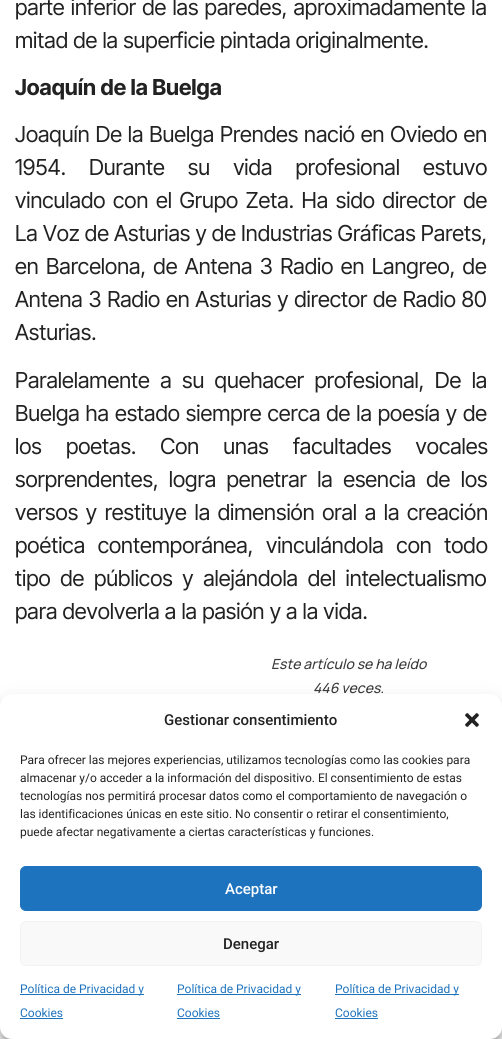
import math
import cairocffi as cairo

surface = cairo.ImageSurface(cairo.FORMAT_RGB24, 502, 1039)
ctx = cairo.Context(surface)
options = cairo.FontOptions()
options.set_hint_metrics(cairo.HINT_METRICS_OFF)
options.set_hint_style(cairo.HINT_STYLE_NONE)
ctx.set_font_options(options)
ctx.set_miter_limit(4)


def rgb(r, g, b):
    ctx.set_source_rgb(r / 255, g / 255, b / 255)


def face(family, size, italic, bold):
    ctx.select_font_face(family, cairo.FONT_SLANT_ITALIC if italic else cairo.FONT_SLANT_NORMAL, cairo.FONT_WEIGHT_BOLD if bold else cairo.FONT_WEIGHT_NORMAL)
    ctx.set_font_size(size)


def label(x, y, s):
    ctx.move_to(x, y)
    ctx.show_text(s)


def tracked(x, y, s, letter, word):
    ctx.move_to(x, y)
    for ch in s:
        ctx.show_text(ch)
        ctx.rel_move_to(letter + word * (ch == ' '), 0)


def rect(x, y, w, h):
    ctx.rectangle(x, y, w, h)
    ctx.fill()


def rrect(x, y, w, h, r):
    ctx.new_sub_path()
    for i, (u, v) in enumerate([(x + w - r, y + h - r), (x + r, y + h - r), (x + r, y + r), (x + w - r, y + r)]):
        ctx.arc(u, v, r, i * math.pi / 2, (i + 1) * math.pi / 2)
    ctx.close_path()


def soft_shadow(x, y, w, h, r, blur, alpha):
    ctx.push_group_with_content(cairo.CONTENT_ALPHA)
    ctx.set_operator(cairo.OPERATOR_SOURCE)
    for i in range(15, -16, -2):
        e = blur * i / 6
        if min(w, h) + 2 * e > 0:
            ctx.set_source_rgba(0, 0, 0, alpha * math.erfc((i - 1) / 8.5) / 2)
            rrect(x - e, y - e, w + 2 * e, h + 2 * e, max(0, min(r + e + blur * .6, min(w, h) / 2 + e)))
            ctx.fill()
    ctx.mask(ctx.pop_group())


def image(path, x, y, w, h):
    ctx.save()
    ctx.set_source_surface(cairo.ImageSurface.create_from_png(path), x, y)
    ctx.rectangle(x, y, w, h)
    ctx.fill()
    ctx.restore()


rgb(255, 255, 255)
ctx.paint()
face('Inter Tight', 22, 0, 0)
rgb(34, 34, 34)
tracked(15, 15, 'parte inferior de las paredes, aproximadamente la', 0, 1)
label(15, 48, 'mitad de la superficie pintada originalmente.')
face('Inter Tight', 22, 0, 1)
label(15, 95, 'Joaquín de la Buelga')
face('Inter Tight', 22, 0, 0)
tracked(15, 142, 'Joaquín De la Buelga Prendes nació en Oviedo en', 0, 0.75)
tracked(15, 175, '1954. Durante su vida profesional estuvo', 0, 18)
tracked(15, 208, 'vinculado con el Grupo Zeta. Ha sido director de', 0, 2.5)
label(15, 241, 'La Voz de Asturias y de Industrias Gráficas Parets,')
tracked(15, 274, 'en Barcelona, de Antena 3 Radio en Langreo, de', 0, 2.25)
tracked(15, 307, 'Antena 3 Radio en Asturias y director de Radio 80', 0, 0.6)
label(15, 340, 'Asturias.')
tracked(15, 388, 'Paralelamente a su quehacer profesional, De la', 0, 5.25)
tracked(15, 421, 'Buelga ha estado siempre cerca de la poesía y de', 0, 0.75)
tracked(15, 454, 'los poetas. Con unas facultades vocales', 0, 19)
tracked(15, 487, 'sorprendentes, logra penetrar la esencia de los', 0, 5.25)
tracked(15, 520, 'versos y restituye la dimensión oral a la creación', 0, 2.5)
tracked(15, 553, 'poética contemporánea, vinculándola con todo', 0, 7.5)
tracked(15, 586, 'tipo de públicos y alejándola del intelectualismo', 0, 4.5)
label(15, 619, 'para devolverla a la pasión y a la vida.')
face('Manrope Medium', 14, 1, 0)
rgb(59, 59, 59)
label(271, 669, 'Este artículo se ha leído')
label(313, 693, '446 veces.')
rgb(0, 0, 0)
soft_shadow(0, 700, 502, 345, 12, 3, 0.23)
soft_shadow(0, 704, 502, 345, 12, 10, 0.19)
rgb(255, 255, 255)
rrect(0, 694, 502, 345, 12)
ctx.fill()
face('Roboto Medium', 15, 0, 0)
rgb(34, 34, 34)
label(164, 725, 'Gestionar consentimiento')
image('image0.png', 465, 713, 14, 14)
face('Roboto', 12, 0, 0)
label(20, 764, 'Para ofrecer las mejores experiencias, utilizamos tecnologías como las cookies para')
label(20, 782, 'almacenar y/o acceder a la información del dispositivo. El consentimiento de estas')
label(20, 800, 'tecnologías nos permitirá procesar datos como el comportamiento de navegación o')
label(20, 818, 'las identificaciones únicas en este sitio. No consentir o retirar el consentimiento,')
label(20, 836, 'puede afectar negativamente a ciertas características y funciones.')
rgb(30, 115, 190)
rrect(20.5, 866.5, 461, 44, 5.5)
ctx.fill_preserve()
ctx.set_line_width(1)
ctx.stroke()
face('Roboto Medium', 15, 0, 0)
rgb(255, 255, 255)
label(225, 894, 'Aceptar')
rgb(249, 249, 249)
rrect(20.5, 921.5, 461, 44, 5.5)
ctx.fill_preserve()
rgb(242, 242, 242)
ctx.stroke()
rgb(34, 34, 34)
label(223, 949, 'Denegar')
rgb(30, 115, 190)
rect(20, 994, 124, 1)
face('Roboto', 12, 0, 0)
label(20, 993, 'Política de Privacidad y')
label(20, 1017, 'Cookies')
rect(20, 1018, 43, 1)
rect(177, 994, 124, 1)
label(177, 993, 'Política de Privacidad y')
label(177, 1017, 'Cookies')
rect(177, 1018, 43, 1)
rect(335, 994, 124, 1)
label(335, 993, 'Política de Privacidad y')
label(335, 1017, 'Cookies')
rect(335, 1018, 43, 1)
surface.write_to_png('render.png')
